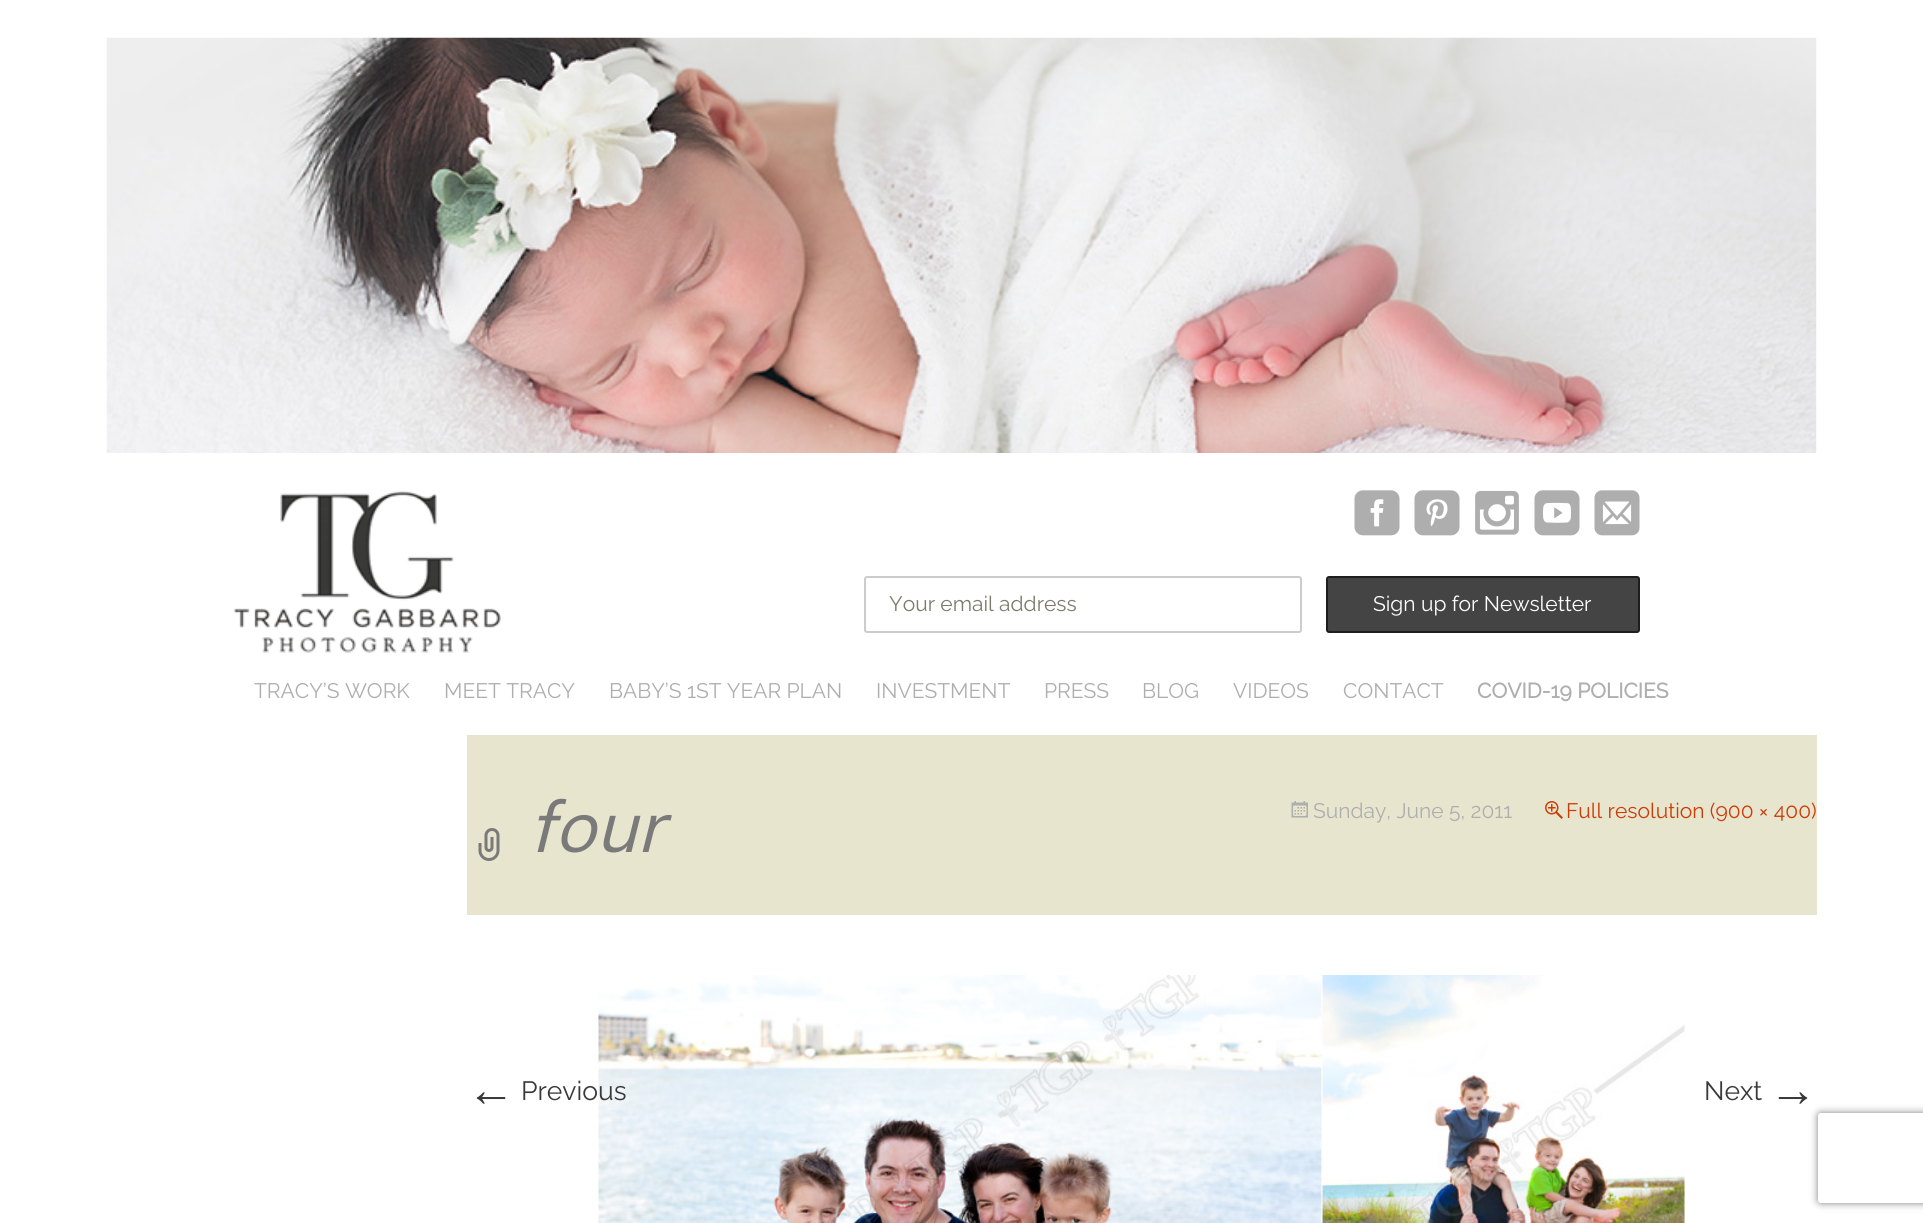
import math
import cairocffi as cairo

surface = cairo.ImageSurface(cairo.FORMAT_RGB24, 1923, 1223)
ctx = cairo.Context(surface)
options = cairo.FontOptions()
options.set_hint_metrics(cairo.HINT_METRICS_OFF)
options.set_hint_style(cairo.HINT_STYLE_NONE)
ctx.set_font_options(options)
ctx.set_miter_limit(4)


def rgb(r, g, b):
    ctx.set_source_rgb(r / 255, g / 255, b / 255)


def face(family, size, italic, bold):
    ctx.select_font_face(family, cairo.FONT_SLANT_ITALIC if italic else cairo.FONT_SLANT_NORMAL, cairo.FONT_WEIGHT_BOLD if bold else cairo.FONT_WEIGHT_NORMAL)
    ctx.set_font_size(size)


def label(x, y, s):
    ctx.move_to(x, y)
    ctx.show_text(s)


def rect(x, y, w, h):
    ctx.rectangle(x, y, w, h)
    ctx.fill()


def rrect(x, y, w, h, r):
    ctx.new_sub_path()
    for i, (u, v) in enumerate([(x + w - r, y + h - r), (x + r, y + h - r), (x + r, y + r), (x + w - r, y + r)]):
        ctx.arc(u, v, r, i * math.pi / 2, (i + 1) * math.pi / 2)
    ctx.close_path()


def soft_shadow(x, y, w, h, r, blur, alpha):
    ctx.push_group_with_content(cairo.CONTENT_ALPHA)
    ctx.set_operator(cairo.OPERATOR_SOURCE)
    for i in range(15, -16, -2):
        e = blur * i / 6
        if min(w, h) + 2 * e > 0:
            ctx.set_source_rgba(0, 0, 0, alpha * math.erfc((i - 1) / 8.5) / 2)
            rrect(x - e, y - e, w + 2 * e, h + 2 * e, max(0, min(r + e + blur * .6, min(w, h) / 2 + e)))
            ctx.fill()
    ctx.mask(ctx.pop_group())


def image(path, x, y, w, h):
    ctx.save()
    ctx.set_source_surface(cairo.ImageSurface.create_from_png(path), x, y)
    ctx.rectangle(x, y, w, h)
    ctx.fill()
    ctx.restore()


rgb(255, 255, 255)
ctx.paint()
image('image0.png', 106, 37, 1711, 416)
image('image1.png', 233, 490, 268, 163)
image('image2.png', 1354, 490, 46, 46)
image('image3.png', 1414, 490, 46, 46)
image('image4.png', 1475, 490, 44, 45)
image('image5.png', 1534, 490, 46, 46)
image('image6.png', 1594, 490, 46, 46)
rrect(865, 577, 436, 55, 2)
rgb(204, 204, 204)
ctx.stroke()
face('Raleway Thin', 21, 0, 0)
rgb(125, 123, 109)
label(889, 611, 'Your email address')
rgb(68, 68, 68)
rrect(1327, 577, 312, 55, 2)
ctx.fill_preserve()
rgb(30, 30, 30)
ctx.stroke()
rgb(255, 255, 255)
label(1373, 611, 'Sign up for Newsletter')
rgb(174, 174, 174)
label(254, 698, 'TRACY’S WORK')
label(444, 698, 'MEET TRACY')
label(609, 698, 'BABY’S 1ST YEAR PLAN')
label(876, 698, 'INVESTMENT')
label(1044, 698, 'PRESS')
label(1142, 698, 'BLOG')
label(1233, 698, 'VIDEOS')
label(1343, 698, 'CONTACT')
face('Raleway', 21, 0, 1)
label(1477, 698, 'COVID-19 POLICIES')
rgb(232, 229, 206)
rect(467, 735, 1350, 180)
image('image7.png', 478, 828, 22, 33)
face('Muli', 72, 1, 0)
rgb(122, 122, 122)
label(530, 852, 'four')
image('image8.png', 1291, 801, 17, 17)
face('Raleway Thin', 21, 0, 0)
rgb(174, 174, 174)
label(1313, 818, 'Sunday, June 5, 2011')
image('image9.png', 1545, 801, 18, 18)
rgb(202, 60, 8)
label(1566, 818, 'Full resolution (900 × 400)')
image('image10.png', 598, 975, 1087, 248)
face('Liberation Sans', 48, 0, 0)
rgb(57, 57, 57)
label(467, 1106, '←')
face('Raleway Thin', 26.5, 0, 0)
label(521, 1100, 'Previous')
label(1704, 1100, 'Next')
face('Liberation Sans', 48, 0, 0)
label(1769, 1106, '→')
ctx.save()
ctx.set_fill_rule(cairo.FILL_RULE_EVEN_ODD)
ctx.new_path()
ctx.move_to(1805, 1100)
ctx.line_to(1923, 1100)
ctx.line_to(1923, 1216)
ctx.line_to(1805, 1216)
ctx.close_path()
ctx.move_to(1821, 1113)
ctx.line_to(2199, 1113)
ctx.curve_to(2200.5, 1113, 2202, 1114.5, 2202, 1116)
ctx.line_to(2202, 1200)
ctx.curve_to(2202, 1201.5, 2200.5, 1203, 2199, 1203)
ctx.line_to(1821, 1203)
ctx.curve_to(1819.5, 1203, 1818, 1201.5, 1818, 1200)
ctx.line_to(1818, 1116)
ctx.curve_to(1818, 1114.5, 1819.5, 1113, 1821, 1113)
ctx.close_path()
ctx.clip()
rgb(128, 128, 128)
soft_shadow(1818, 1113, 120, 90, 3, 4, 1)
ctx.restore()
surface.write_to_png('render.png')
